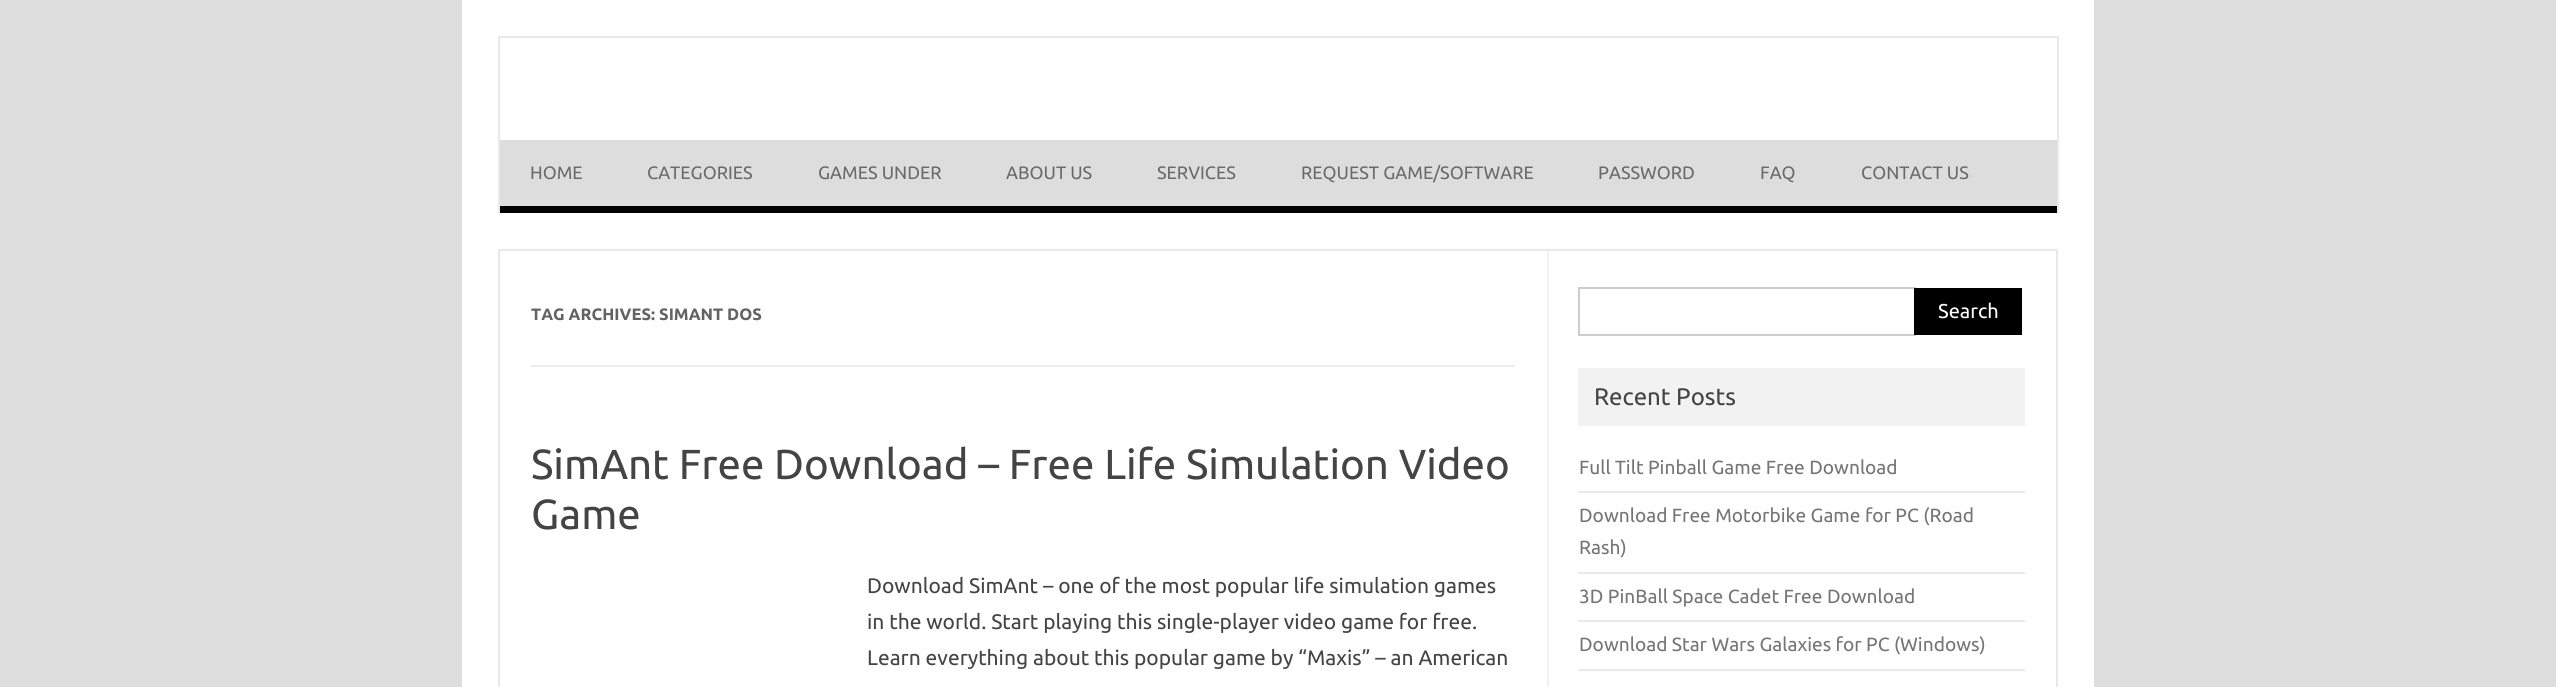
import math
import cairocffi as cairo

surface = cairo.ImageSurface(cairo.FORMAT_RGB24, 2556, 687)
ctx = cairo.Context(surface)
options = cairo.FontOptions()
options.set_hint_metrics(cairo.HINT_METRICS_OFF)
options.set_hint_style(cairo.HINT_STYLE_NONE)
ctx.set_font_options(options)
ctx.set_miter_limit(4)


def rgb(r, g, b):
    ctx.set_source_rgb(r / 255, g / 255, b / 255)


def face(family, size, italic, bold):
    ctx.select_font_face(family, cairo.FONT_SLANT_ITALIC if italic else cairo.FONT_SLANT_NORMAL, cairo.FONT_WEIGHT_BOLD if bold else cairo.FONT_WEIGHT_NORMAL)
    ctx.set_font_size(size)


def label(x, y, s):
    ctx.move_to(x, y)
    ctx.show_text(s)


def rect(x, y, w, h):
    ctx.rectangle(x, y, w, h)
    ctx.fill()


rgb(221, 221, 221)
ctx.paint()
rgb(255, 255, 255)
rect(462, 0, 1632, 687)
rgb(233, 233, 233)
rect(498, 36, 1560, 2)
rect(2057, 36, 2, 177)
rect(498, 36, 2, 177)
rgb(221, 221, 221)
rect(500, 140, 1557, 66)
rgb(0, 0, 0)
rect(500, 206, 1557, 7)
face('Ubuntu', 18, 0, 0)
rgb(106, 106, 106)
label(530, 179, 'HOME')
label(647, 179, 'CATEGORIES')
label(818, 179, 'GAMES UNDER')
label(1006, 179, 'ABOUT US')
label(1157, 179, 'SERVICES')
label(1301, 179, 'REQUEST GAME/SOFTWARE')
label(1598, 179, 'PASSWORD')
label(1760, 179, 'FAQ')
label(1861, 179, 'CONTACT US')
ctx.rectangle(499, 250, 1558, 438)
rgb(233, 233, 233)
ctx.stroke()
rgb(241, 241, 241)
rect(1547, 251, 2, 436)
rgb(237, 237, 237)
rect(531, 365, 984, 2)
face('Ubuntu', 16.5, 0, 1)
rgb(99, 99, 99)
label(531, 320, 'TAG ARCHIVES: SIMANT DOS')
face('Ubuntu', 42, 0, 0)
rgb(68, 68, 68)
label(531, 479, 'SimAnt Free Download – Free Life Simulation Video')
label(531, 529, 'Game')
face('Ubuntu', 21, 0, 0)
label(867, 593, 'Download SimAnt – one of the most popular life simulation games')
label(867, 629, 'in the world. Start playing this single-player video game for free.')
label(867, 665, 'Learn everything about this popular game by “Maxis” – an American')
ctx.rectangle(1579, 288, 336, 47)
rgb(204, 204, 204)
ctx.stroke()
rgb(0, 0, 0)
rect(1914, 288, 108, 47)
face('Ubuntu', 20, 0, 0)
rgb(255, 255, 255)
label(1938, 318, 'Search')
rgb(242, 242, 242)
rect(1578, 368, 447, 58)
face('Ubuntu', 24, 0, 0)
rgb(68, 68, 68)
label(1594, 405, 'Recent Posts')
rgb(233, 233, 233)
rect(1578, 491, 447, 2)
face('Ubuntu', 19.1, 0, 0)
rgb(117, 117, 117)
label(1579, 474, 'Full Tilt Pinball Game Free Download')
rgb(233, 233, 233)
rect(1578, 572, 447, 2)
rgb(117, 117, 117)
label(1579, 522, 'Download Free Motorbike Game for PC (Road')
label(1579, 554, 'Rash)')
rgb(233, 233, 233)
rect(1578, 620, 447, 2)
rgb(117, 117, 117)
label(1579, 603, '3D PinBall Space Cadet Free Download')
rgb(233, 233, 233)
rect(1578, 669, 447, 2)
rgb(117, 117, 117)
label(1579, 651, 'Download Star Wars Galaxies for PC (Windows)')
surface.write_to_png('render.png')
